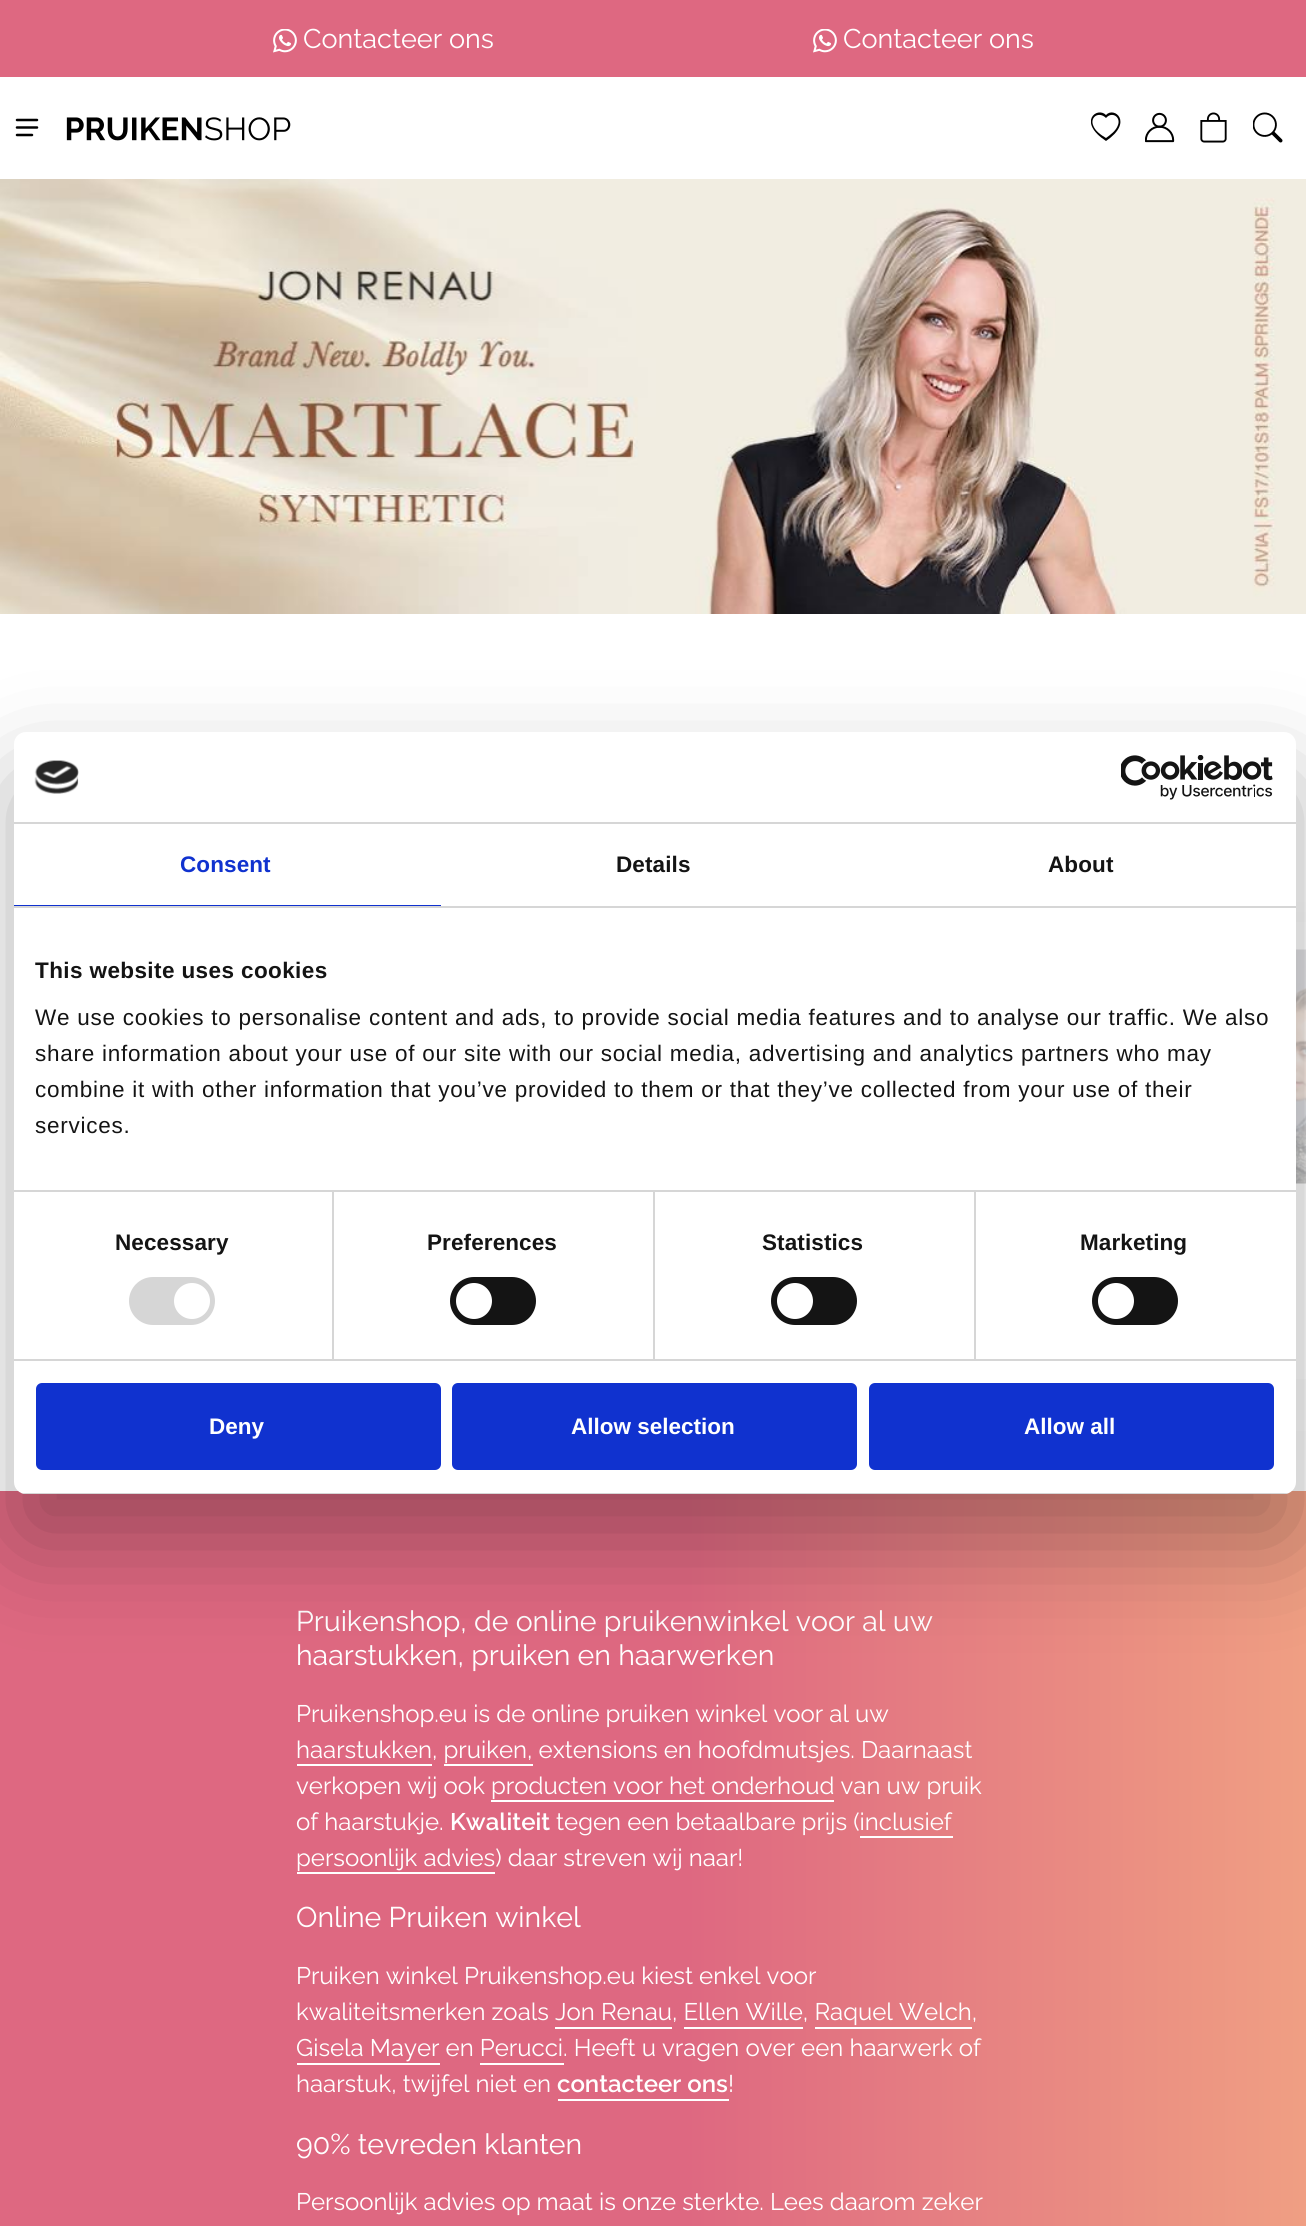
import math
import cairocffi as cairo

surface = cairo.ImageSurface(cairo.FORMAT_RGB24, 1306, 2226)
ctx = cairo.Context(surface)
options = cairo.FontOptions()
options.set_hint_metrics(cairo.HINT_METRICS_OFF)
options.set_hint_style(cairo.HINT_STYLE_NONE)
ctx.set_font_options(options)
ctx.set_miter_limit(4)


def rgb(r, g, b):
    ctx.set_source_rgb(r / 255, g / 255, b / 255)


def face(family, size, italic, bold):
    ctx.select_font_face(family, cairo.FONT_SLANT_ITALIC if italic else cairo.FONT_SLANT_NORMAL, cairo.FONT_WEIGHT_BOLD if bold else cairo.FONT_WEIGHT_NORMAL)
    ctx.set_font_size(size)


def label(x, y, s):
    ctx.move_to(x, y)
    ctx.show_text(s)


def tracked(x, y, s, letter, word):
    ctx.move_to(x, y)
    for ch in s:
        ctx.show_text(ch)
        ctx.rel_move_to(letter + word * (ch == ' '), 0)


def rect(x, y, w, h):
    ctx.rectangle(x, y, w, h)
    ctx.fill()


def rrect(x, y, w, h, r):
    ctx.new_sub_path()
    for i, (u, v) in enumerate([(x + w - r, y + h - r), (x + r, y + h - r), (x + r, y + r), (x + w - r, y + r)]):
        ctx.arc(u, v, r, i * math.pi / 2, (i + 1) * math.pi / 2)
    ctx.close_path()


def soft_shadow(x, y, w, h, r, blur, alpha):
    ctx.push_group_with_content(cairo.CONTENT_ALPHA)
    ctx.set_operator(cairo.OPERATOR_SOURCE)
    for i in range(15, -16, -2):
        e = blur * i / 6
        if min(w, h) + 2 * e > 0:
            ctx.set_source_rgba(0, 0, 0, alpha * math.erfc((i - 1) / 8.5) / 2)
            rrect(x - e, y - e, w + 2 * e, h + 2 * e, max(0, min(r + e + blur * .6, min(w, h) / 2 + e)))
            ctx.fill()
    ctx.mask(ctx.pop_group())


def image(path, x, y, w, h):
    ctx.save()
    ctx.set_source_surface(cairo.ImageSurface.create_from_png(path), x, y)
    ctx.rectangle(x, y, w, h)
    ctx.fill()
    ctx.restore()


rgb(255, 255, 255)
ctx.paint()
rgb(222, 104, 129)
rect(0, 0, 1306, 77)
image('image0.png', 273, 29, 24, 24)
face('Raleway', 27, 0, 0)
rgb(255, 255, 255)
label(303, 48, 'Contacteer ons')
image('image0.png', 813, 29, 24, 24)
label(843, 48, 'Contacteer ons')
ctx.new_path()
ctx.move_to(17, 135)
ctx.line_to(32, 135)
ctx.move_to(17, 127.5)
ctx.line_to(37, 127.5)
ctx.move_to(17, 120)
ctx.line_to(37, 120)
rgb(0, 0, 0)
ctx.set_line_width(2.5)
ctx.set_line_cap(cairo.LINE_CAP_ROUND)
ctx.stroke()
image('image1.png', 66, 117, 225, 24)
ctx.save()
ctx.rectangle(1091, 101, 30, 54)
ctx.clip()
ctx.new_path()
ctx.move_to(1106, 118)
ctx.curve_to(1099, 111, 1090, 117, 1093, 125)
ctx.curve_to(1095, 131, 1101, 135, 1106, 138)
ctx.curve_to(1110, 135, 1116, 131, 1118, 125)
ctx.curve_to(1121, 117, 1112, 111, 1106, 118)
ctx.close_path()
ctx.move_to(1106, 141)
ctx.curve_to(1077, 122, 1097, 106, 1106, 115)
ctx.curve_to(1114, 106, 1134, 122, 1106, 141)
ctx.close_path()
ctx.fill()
ctx.restore()
image('image2.png', 1145, 112, 30, 31)
image('image3.png', 1200, 112, 27, 31)
image('image4.png', 1253, 112, 30, 31)
image('image5.png', 0, 179, 1306, 435)
rgb(0, 0, 0)
soft_shadow(1212, 947, 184, 468, 0, 30, 0.05)
rgb(255, 255, 255)
rect(1296, 922, 10, 457)
image('image6.png', 1296, 949, 10, 235)
gradient = cairo.LinearGradient(1176, 1145, 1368, 1145)
gradient.add_color_stop_rgba(0, 1, 1, 1, 0)
gradient.add_color_stop_rgba(1, 1, 1, 1, 1)
ctx.set_source(gradient)
rect(1296, 949, 10, 482)
gradient = cairo.LinearGradient(0, 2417, 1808, 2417)
gradient.add_color_stop_rgba(0.38, 0.871, 0.408, 0.506, 1)
gradient.add_color_stop_rgba(1, 0.996, 0.796, 0.518, 1)
ctx.set_source(gradient)
rect(0, 1491, 1306, 735)
face('Raleway', 28.5, 0, 0)
rgb(255, 255, 255)
label(296, 1631, 'Pruikenshop, de online pruikenwinkel voor al uw')
label(296, 1665, 'haarstukken, pruiken en haarwerken')
face('Raleway', 24, 0, 0)
label(296, 1722, 'Pruikenshop.eu is de online pruiken winkel voor al uw')
label(296, 1758, 'haarstukken, pruiken, extensions en hoofdmutsjes. Daarnaast')
rect(297, 1764, 135, 2)
rect(444, 1764, 89, 2)
label(296, 1794, 'verkopen wij ook producten voor het onderhoud van uw pruik')
rect(491, 1800, 343, 2)
label(296, 1830, 'of haarstukje.')
face('Raleway SemiBold', 24, 0, 0)
label(450, 1830, 'Kwaliteit')
face('Raleway', 24, 0, 0)
label(556, 1830, 'tegen een betaalbare prijs (inclusief')
label(296, 1866, 'persoonlijk advies) daar streven wij naar!')
rect(860, 1836, 93, 2)
rect(297, 1872, 198, 2)
face('Raleway', 28.5, 0, 0)
label(296, 1927, 'Online Pruiken winkel')
face('Raleway', 24, 0, 0)
label(296, 1984, 'Pruiken winkel Pruikenshop.eu kiest enkel voor')
label(296, 2020, 'kwaliteitsmerken zoals Jon Renau, Ellen Wille, Raquel Welch,')
rect(555, 2027, 117, 2)
rect(684, 2027, 119, 2)
rect(815, 2027, 157, 2)
label(296, 2056, 'Gisela Mayer en Perucci. Heeft u vragen over een haarwerk of')
rect(297, 2063, 143, 2)
rect(480, 2063, 84, 2)
label(296, 2092, 'haarstuk, twijfel niet en')
face('Raleway SemiBold', 24, 0, 0)
label(557, 2092, 'contacteer ons')
rect(558, 2099, 171, 2)
face('Raleway', 24, 0, 0)
label(728, 2092, '!')
face('Raleway', 28.5, 0, 0)
label(296, 2154, '90% tevreden klanten')
face('Raleway', 24, 0, 0)
label(296, 2210, 'Persoonlijk advies op maat is onze sterkte. Lees daarom zeker')
rgb(0, 0, 0)
soft_shadow(14, 780, 1282, 762, 12, 51, 0.3)
rgb(255, 255, 255)
rrect(14, 732, 1282, 762, 12)
ctx.fill()
rgb(214, 214, 214)
rect(14, 822, 1282, 2)
image('image7.png', 34, 760, 45, 34)
image('image8.png', 1121, 755, 152, 45)
rect(14, 906, 1282, 2)
rgb(16, 50, 207)
rect(14, 905, 427, 1)
face('Liberation Sans', 22.5, 0, 1)
tracked(180, 872, 'Consent', 0.1, 0)
rgb(20, 20, 20)
tracked(616, 872, 'Details', 0.1, 0)
tracked(1048, 872, 'About', 0.1, 0)
rgb(214, 214, 214)
rect(332, 1191, 2, 168)
rect(653, 1191, 2, 168)
rect(974, 1191, 2, 168)
rect(14, 1190, 1282, 2)
rgb(20, 20, 20)
tracked(35, 978, 'This website uses cookies', 0.4, 0)
face('Liberation Sans', 22.5, 0, 0)
tracked(35, 1025, 'We use cookies to personalise content and ads, to provide social media features and to analyse our traffic. We also', 0.75, 0)
tracked(35, 1061, 'share information about your use of our site with our social media, advertising and analytics partners who may', 0.75, 0)
tracked(35, 1097, 'combine it with other information that you’ve provided to them or that they’ve collected from your use of their', 0.75, 0)
tracked(35, 1133, 'services.', 0.75, 0)
rgb(214, 214, 214)
rect(14, 1359, 1282, 2)
face('Liberation Sans', 22.5, 0, 1)
rgb(20, 20, 20)
tracked(115, 1250, 'Necessary', 0.1, 0)
rgb(214, 214, 214)
rrect(129, 1277, 86, 48, 24)
ctx.fill()
rgb(255, 255, 255)
ctx.arc(192, 1301, 18, 0, 2 * math.pi)
ctx.fill()
rgb(20, 20, 20)
tracked(427, 1250, 'Preferences', 0.1, 0)
rrect(450, 1277, 86, 48, 24)
ctx.fill()
rgb(255, 255, 255)
ctx.arc(474, 1301, 18, 0, 2 * math.pi)
ctx.fill()
rgb(20, 20, 20)
tracked(762, 1250, 'Statistics', 0.1, 0)
rrect(771, 1277, 86, 48, 24)
ctx.fill()
rgb(255, 255, 255)
ctx.arc(795, 1301, 18, 0, 2 * math.pi)
ctx.fill()
rgb(20, 20, 20)
tracked(1080, 1250, 'Marketing', 0.1, 0)
rrect(1092, 1277, 86, 48, 24)
ctx.fill()
rgb(255, 255, 255)
ctx.arc(1116, 1301, 18, 0, 2 * math.pi)
ctx.fill()
ctx.save()
rrect(14, 732, 1282, 762, 12)
ctx.clip()
rgb(214, 214, 214)
rect(14, 1493, 1282, 1)
ctx.restore()
rgb(16, 50, 207)
rrect(37.5, 1384.5, 402, 84, 4.5)
ctx.fill_preserve()
ctx.set_line_width(3)
ctx.set_line_cap(cairo.LINE_CAP_BUTT)
ctx.stroke()
rgb(255, 255, 255)
label(209, 1434, 'Deny')
rgb(16, 50, 207)
rrect(453.5, 1384.5, 402, 84, 4.5)
ctx.fill_preserve()
ctx.stroke()
rgb(255, 255, 255)
label(571, 1434, 'Allow selection')
rgb(16, 50, 207)
rrect(870.5, 1384.5, 402, 84, 4.5)
ctx.fill_preserve()
ctx.stroke()
rgb(255, 255, 255)
label(1024, 1434, 'Allow all')
surface.write_to_png('render.png')
